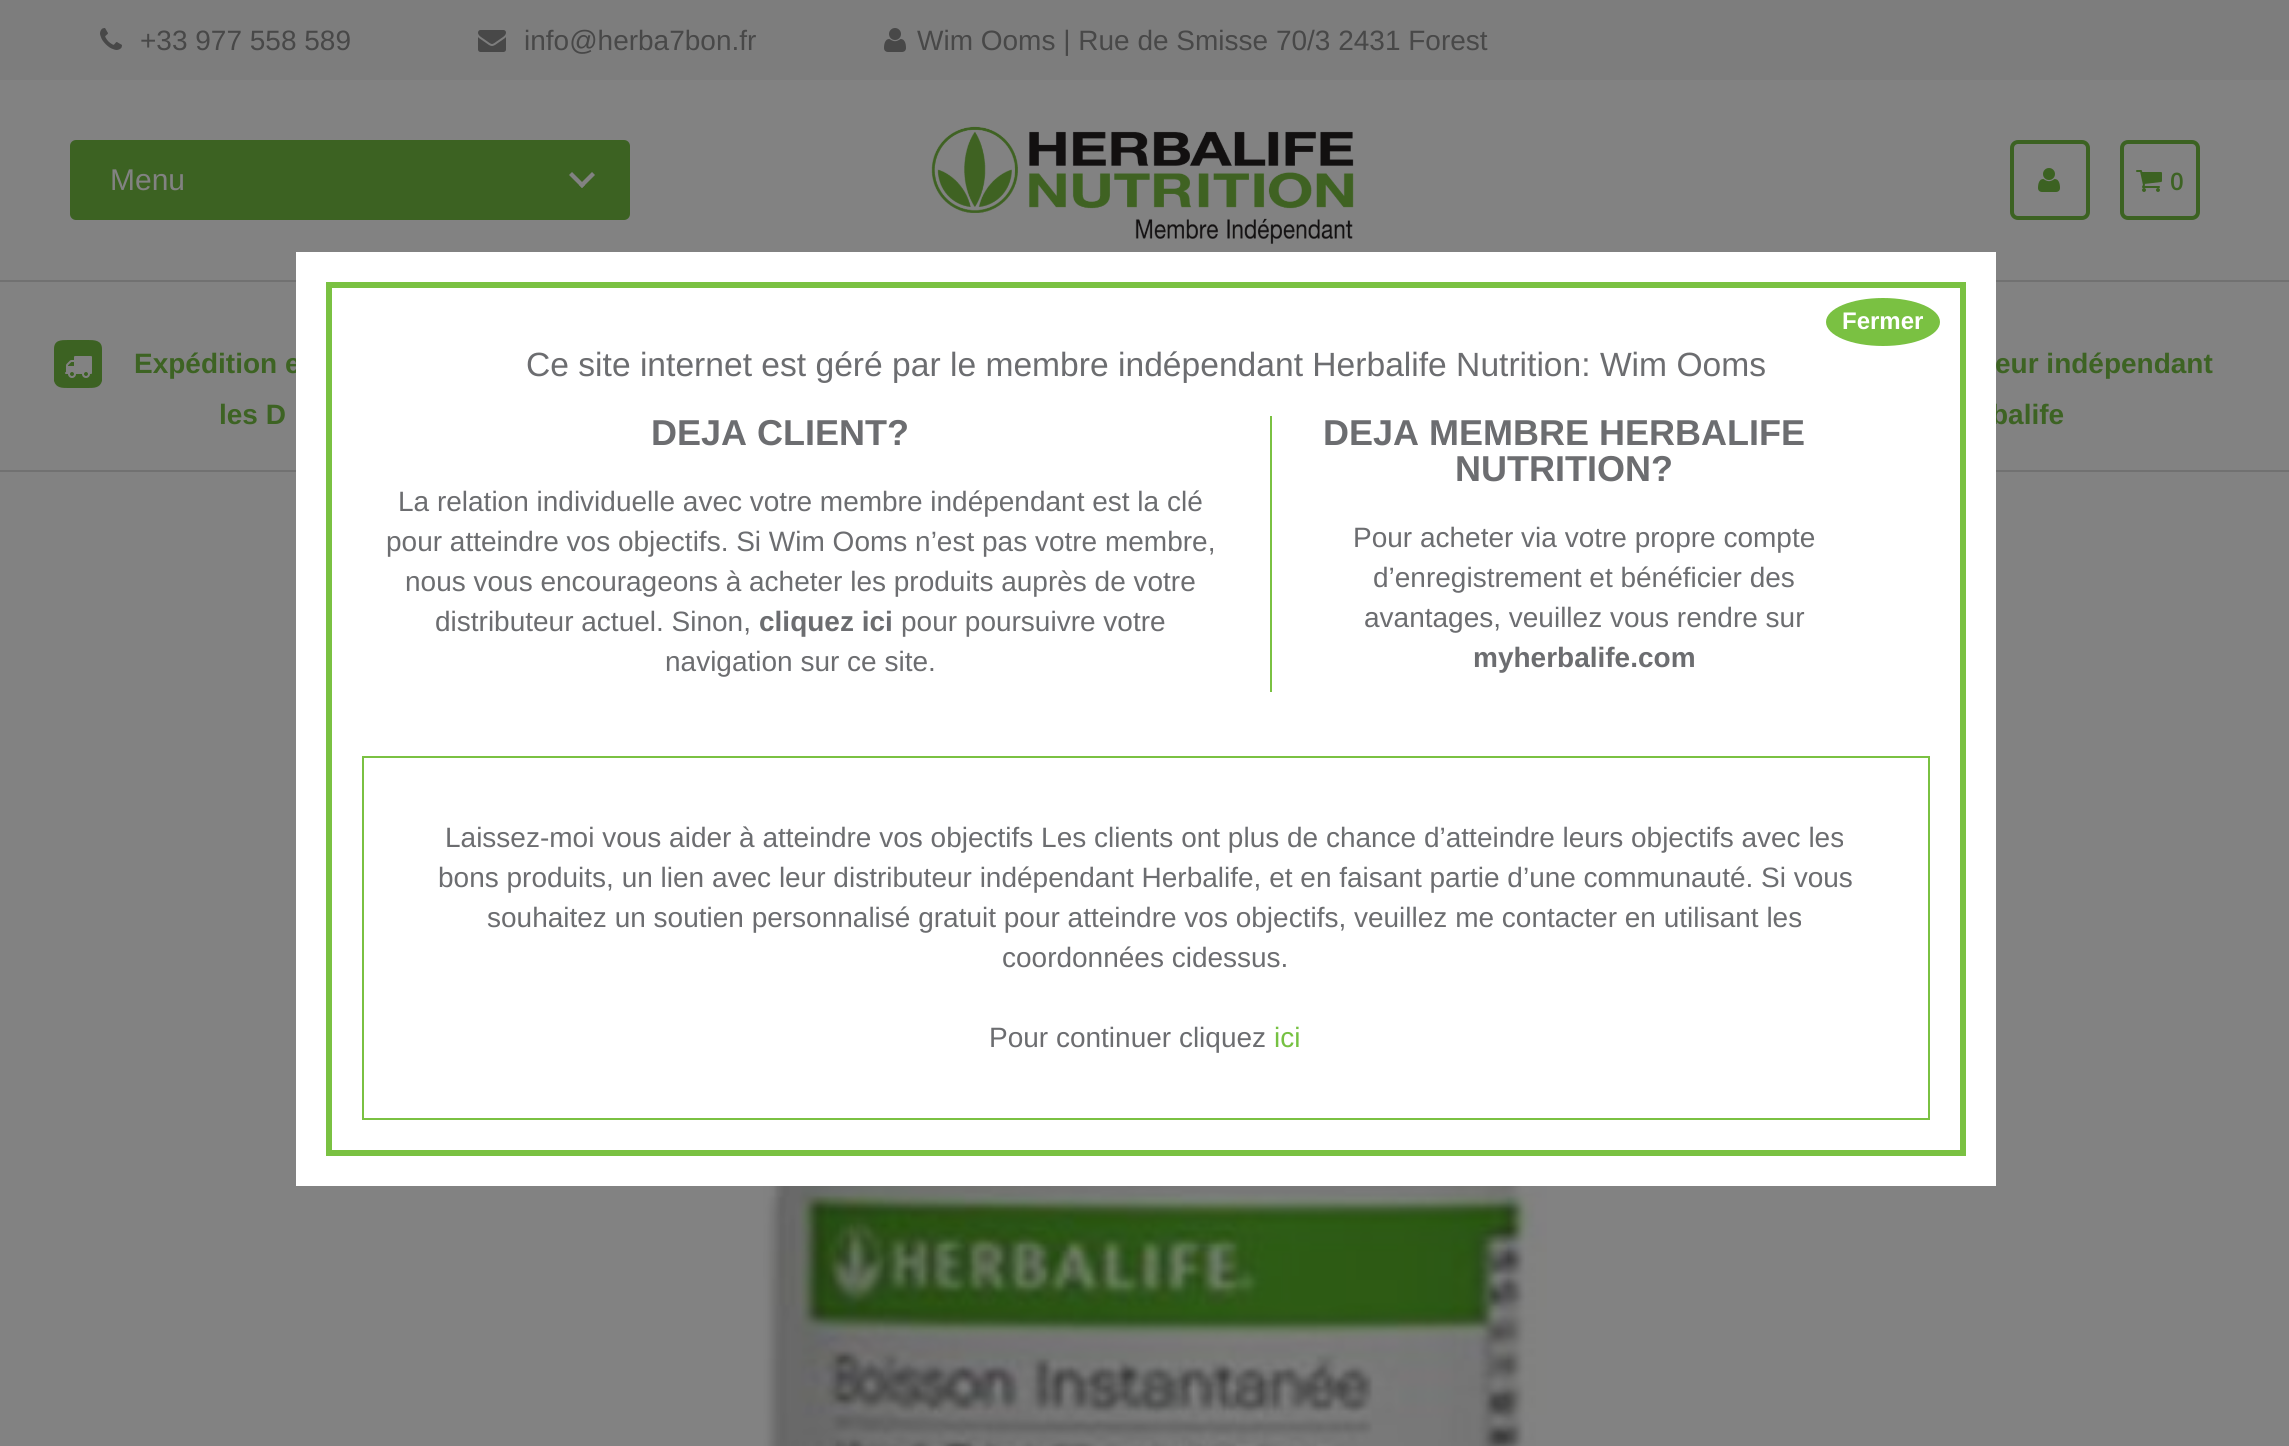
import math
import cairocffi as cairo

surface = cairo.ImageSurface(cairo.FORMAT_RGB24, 2289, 1446)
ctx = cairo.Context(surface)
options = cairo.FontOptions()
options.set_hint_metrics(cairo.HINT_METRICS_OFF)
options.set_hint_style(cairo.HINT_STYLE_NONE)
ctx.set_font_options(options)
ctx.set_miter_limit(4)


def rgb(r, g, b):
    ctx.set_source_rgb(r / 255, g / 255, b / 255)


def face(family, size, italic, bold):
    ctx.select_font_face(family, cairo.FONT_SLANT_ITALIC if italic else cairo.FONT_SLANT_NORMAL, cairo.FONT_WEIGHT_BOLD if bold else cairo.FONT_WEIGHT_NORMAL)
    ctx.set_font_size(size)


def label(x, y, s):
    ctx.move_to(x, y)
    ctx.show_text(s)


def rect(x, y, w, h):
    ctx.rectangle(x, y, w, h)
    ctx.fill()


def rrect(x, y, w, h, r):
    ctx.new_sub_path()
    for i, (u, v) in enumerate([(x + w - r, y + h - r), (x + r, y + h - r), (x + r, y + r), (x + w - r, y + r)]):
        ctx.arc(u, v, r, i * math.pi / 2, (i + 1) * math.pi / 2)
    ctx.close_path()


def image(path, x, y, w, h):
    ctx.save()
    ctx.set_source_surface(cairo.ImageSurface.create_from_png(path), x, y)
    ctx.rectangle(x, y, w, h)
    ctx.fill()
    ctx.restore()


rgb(130, 130, 130)
ctx.paint()
rgb(125, 125, 125)
rect(0, 0, 2289, 80)
image('image0.png', 100, 28, 22, 22)
face('Liberation Sans', 28, 0, 0)
rgb(72, 72, 72)
label(140, 50, '+33 977 558 589')
image('image1.png', 478, 30, 28, 22)
label(524, 50, 'info@herba7bon.fr')
image('image2.png', 884, 28, 22, 24)
label(917, 50, 'Wim Ooms | Rue de Smisse 70/3 2431 Forest')
rgb(60, 98, 34)
rrect(70, 140, 560, 80, 6)
ctx.fill()
face('Liberation Sans', 30, 0, 0)
rgb(130, 130, 130)
label(110, 190, 'Menu')
ctx.new_path()
ctx.move_to(572, 172)
ctx.line_to(585, 185)
ctx.line_to(582, 188)
ctx.line_to(569, 175)
ctx.close_path()
ctx.fill()
ctx.new_path()
ctx.move_to(579, 185)
ctx.line_to(592, 172)
ctx.line_to(595, 175)
ctx.line_to(582, 188)
ctx.close_path()
ctx.fill()
image('image3.png', 931, 126, 423, 118)
rrect(2012, 142, 76, 76, 6)
rgb(60, 98, 34)
ctx.set_line_width(4)
ctx.stroke()
image('image4.png', 2038, 168, 22, 24)
rrect(2122, 142, 76, 76, 6)
ctx.stroke()
image('image5.png', 2136, 170, 26, 22)
face('Open Sans SemiBold', 24, 0, 0)
rgb(61, 99, 35)
label(2170, 190, '0')
rgb(113, 113, 113)
rect(0, 280, 2289, 2)
rect(0, 470, 2289, 2)
face('Liberation Sans', 28, 0, 1)
rgb(61, 99, 35)
label(134, 373, 'Expédition e')
label(1995, 373, 'eur indépendant')
label(1991, 424, 'balife')
rgb(255, 255, 255)
rect(296, 252, 1700, 934)
ctx.rectangle(329, 285, 1634, 868)
rgb(122, 193, 66)
ctx.set_line_width(6)
ctx.stroke()
ctx.new_path()
ctx.move_to(1883, 298)
ctx.curve_to(1914.5, 298, 1940, 308.5, 1940, 322)
ctx.curve_to(1940, 335.5, 1914.5, 346, 1883, 346)
ctx.curve_to(1851.5, 346, 1826, 335.5, 1826, 322)
ctx.curve_to(1826, 308.5, 1851.5, 298, 1883, 298)
ctx.close_path()
ctx.fill()
face('Liberation Sans', 24, 0, 1)
rgb(255, 255, 255)
label(1842, 329, 'Fermer')
face('Liberation Sans', 33.6, 0, 0)
rgb(108, 109, 112)
label(526, 376, 'Ce site internet est géré par le membre indépendant Herbalife Nutrition: Wim Ooms')
face('Liberation Sans', 36, 0, 1)
label(651, 445, 'DEJA CLIENT?')
face('Liberation Sans', 28, 0, 0)
label(398, 511, 'La relation individuelle avec votre membre indépendant est la clé')
label(386, 551, 'pour atteindre vos objectifs. Si Wim Ooms n’est pas votre membre,')
label(405, 591, 'nous vous encourageons à acheter les produits auprès de votre')
label(435, 631, 'distributeur actuel. Sinon,')
face('Liberation Sans', 28, 0, 1)
label(759, 631, 'cliquez ici')
face('Liberation Sans', 28, 0, 0)
label(901, 631, 'pour poursuivre votre')
label(665, 671, 'navigation sur ce site.')
rgb(122, 193, 66)
rect(1270, 416, 2, 276)
face('Liberation Sans', 36, 0, 1)
rgb(108, 109, 112)
label(1323, 445, 'DEJA MEMBRE HERBALIFE')
label(1455, 481, 'NUTRITION?')
face('Liberation Sans', 28, 0, 0)
label(1353, 547, 'Pour acheter via votre propre compte')
label(1373, 587, 'd’enregistrement et bénéficier des')
label(1364, 627, 'avantages, veuillez vous rendre sur')
face('Liberation Sans', 28, 0, 1)
label(1473, 667, 'myherbalife.com')
ctx.rectangle(363, 757, 1566, 362)
rgb(122, 193, 66)
ctx.set_line_width(2)
ctx.stroke()
face('Liberation Sans', 28, 0, 0)
rgb(108, 109, 112)
label(445, 847, 'Laissez-moi vous aider à atteindre vos objectifs Les clients ont plus de chance d’atteindre leurs objectifs avec les')
label(438, 887, 'bons produits, un lien avec leur distributeur indépendant Herbalife, et en faisant partie d’une communauté. Si vous')
label(487, 927, 'souhaitez un soutien personnalisé gratuit pour atteindre vos objectifs, veuillez me contacter en utilisant les')
label(1002, 967, 'coordonnées cidessus.')
label(989, 1047, 'Pour continuer cliquez')
rgb(118, 193, 66)
label(1274, 1047, 'ici')
rgb(60, 98, 34)
ctx.new_path()
ctx.move_to(102, 349)
ctx.line_to(102, 381)
ctx.curve_to(100, 388, 94, 388, 88, 388)
ctx.line_to(68, 388)
ctx.curve_to(62, 388, 56, 388, 54, 381)
ctx.line_to(54, 349)
ctx.curve_to(54, 340, 61, 340, 68, 340)
ctx.line_to(88, 340)
ctx.curve_to(94, 340, 102, 340, 102, 349)
ctx.close_path()
ctx.fill()
image('image6.png', 65, 356, 27, 22)
face('Liberation Sans', 28, 0, 1)
rgb(61, 99, 35)
label(219, 424, 'les D')
image('image7.png', 763, 1186, 784, 260)
surface.write_to_png('render.png')
